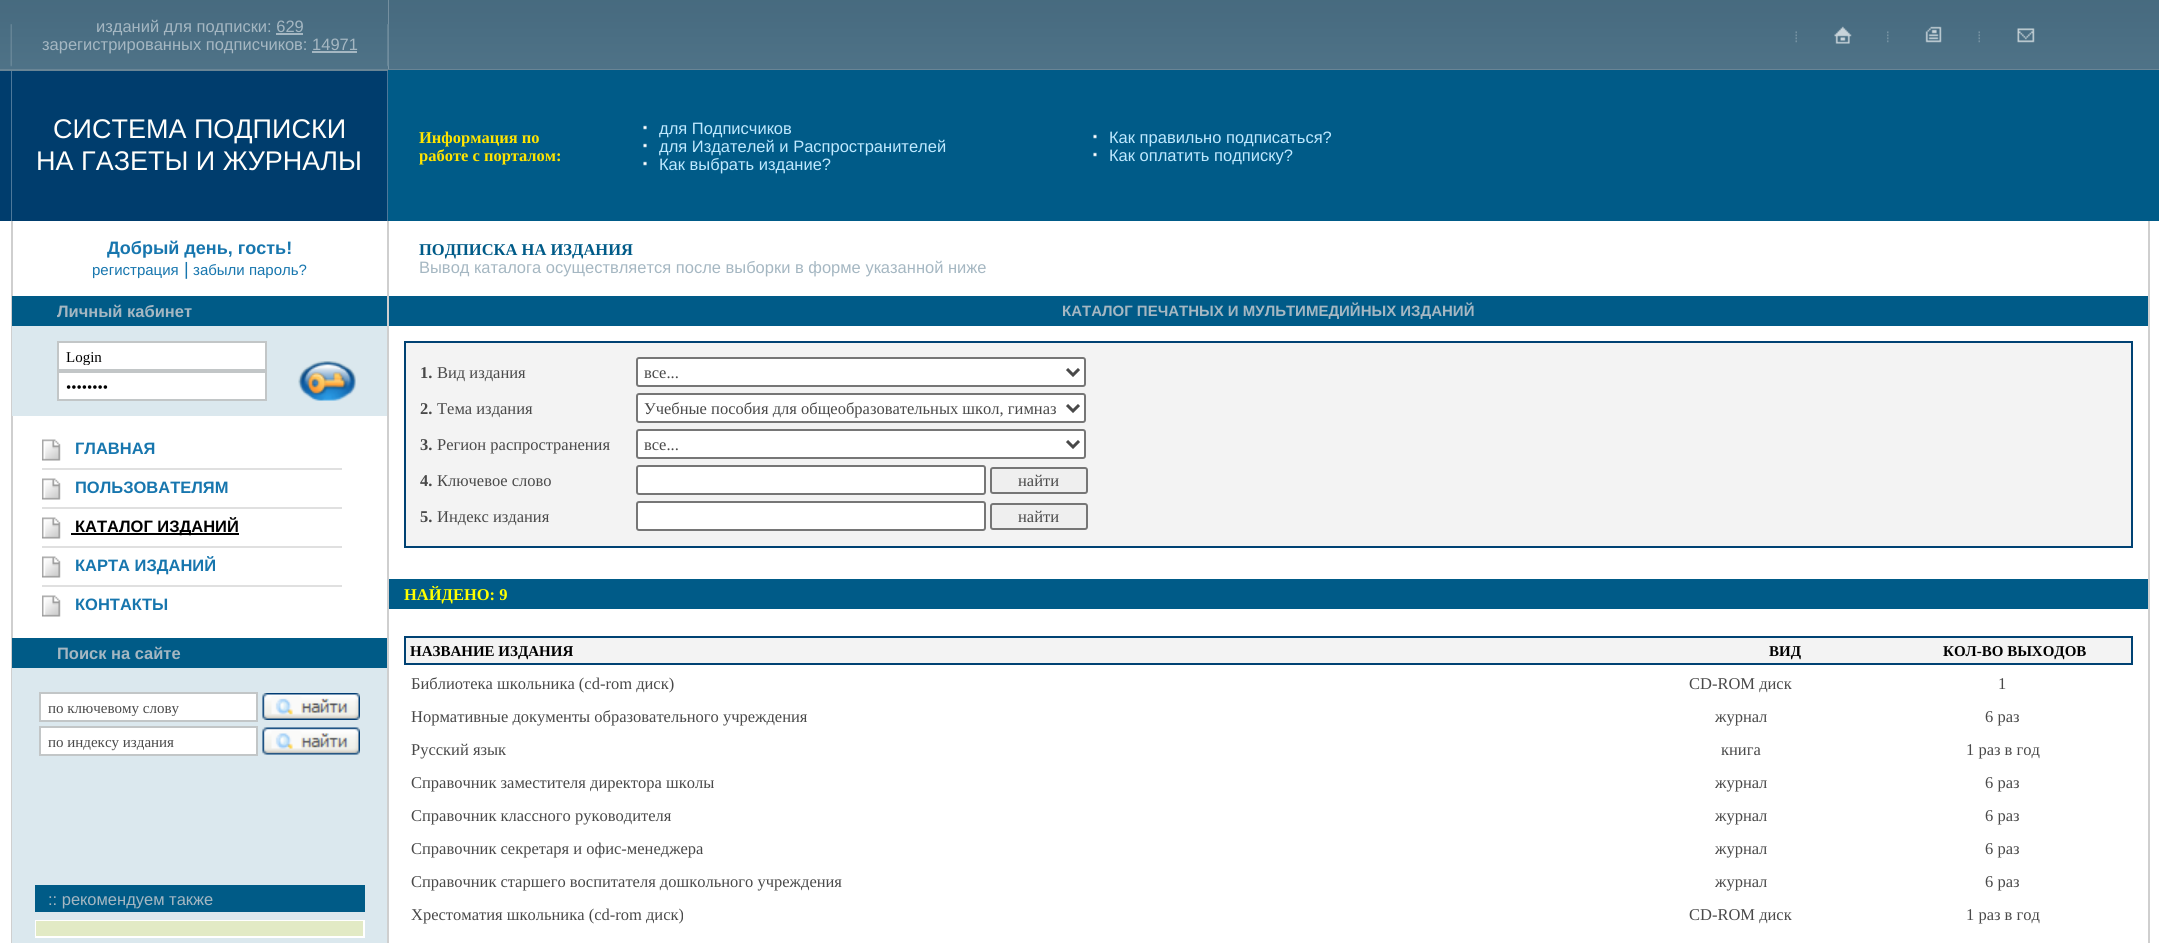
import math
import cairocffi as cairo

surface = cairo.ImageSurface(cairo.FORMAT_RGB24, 2159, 943)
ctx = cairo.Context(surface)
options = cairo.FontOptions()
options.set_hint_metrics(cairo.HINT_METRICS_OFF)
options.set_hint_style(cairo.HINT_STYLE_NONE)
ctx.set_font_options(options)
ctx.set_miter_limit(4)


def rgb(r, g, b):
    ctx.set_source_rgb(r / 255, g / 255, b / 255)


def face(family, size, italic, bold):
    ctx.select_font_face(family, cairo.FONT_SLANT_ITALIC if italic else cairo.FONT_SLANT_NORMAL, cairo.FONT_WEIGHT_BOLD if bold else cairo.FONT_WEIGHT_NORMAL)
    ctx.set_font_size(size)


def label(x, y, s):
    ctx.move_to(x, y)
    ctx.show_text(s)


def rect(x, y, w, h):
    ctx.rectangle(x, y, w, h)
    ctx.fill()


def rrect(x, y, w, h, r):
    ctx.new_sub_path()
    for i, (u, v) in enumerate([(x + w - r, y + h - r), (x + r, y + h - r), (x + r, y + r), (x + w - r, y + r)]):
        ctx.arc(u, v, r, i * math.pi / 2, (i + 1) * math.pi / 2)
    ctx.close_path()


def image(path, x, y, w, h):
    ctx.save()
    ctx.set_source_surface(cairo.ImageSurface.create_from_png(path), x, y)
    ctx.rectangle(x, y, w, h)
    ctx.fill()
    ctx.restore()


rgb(255, 255, 255)
ctx.paint()
image('image0.png', 0, 0, 389, 69)
image('image1.png', 10, 24, 2, 43)
face('Liberation Sans', 16.5, 0, 0)
rgb(165, 183, 194)
label(96, 32, 'изданий для подписки: 629')
rect(276, 33, 27, 2)
label(42, 50, 'зарегистрированных подписчиков: 14971')
rect(312, 51, 45, 2)
image('image3.png', 388, 0, 1771, 69)
image('image2.png', 387, 24, 2, 43)
image('image4.png', 1795, 31, 2, 12)
image('image5.png', 1834, 26, 18, 18)
image('image6.png', 1887, 31, 2, 12)
image('image7.png', 1925, 26, 17, 17)
image('image4.png', 1978, 31, 2, 12)
image('image8.png', 2017, 28, 18, 15)
rgb(105, 133, 149)
rect(0, 69, 2159, 2)
rgb(0, 61, 109)
rect(0, 71, 11, 150)
rgb(77, 120, 154)
rect(11, 71, 1, 150)
rgb(0, 61, 109)
rect(12, 71, 375, 150)
face('Liberation Sans', 27, 0, 0)
rgb(255, 254, 251)
label(53, 138, 'СИСТЕМА ПОДПИСКИ')
label(36, 170, 'НА ГАЗЕТЫ И ЖУРНАЛЫ')
rgb(77, 120, 154)
rect(387, 71, 1, 150)
rgb(0, 91, 136)
rect(388, 70, 1771, 151)
face('Liberation Serif', 16.5, 0, 1)
rgb(255, 228, 0)
label(419, 143, 'Информация по')
label(419, 161, 'работе с порталом:')
image('image9.png', 643, 125, 4, 5)
face('Liberation Sans', 16.5, 0, 0)
rgb(191, 233, 255)
label(659, 134, 'для Подписчиков')
image('image9.png', 643, 143, 4, 5)
label(659, 152, 'для Издателей и Распространителей')
image('image9.png', 643, 161, 4, 5)
label(659, 170, 'Как выбрать издание?')
image('image10.png', 1093, 134, 4, 5)
label(1109, 143, 'Как правильно подписаться?')
image('image10.png', 1093, 152, 4, 5)
label(1109, 161, 'Как оплатить подписку?')
rgb(207, 207, 207)
rect(11, 221, 2, 722)
face('Liberation Sans', 18, 0, 1)
rgb(23, 118, 174)
label(107, 254, 'Добрый день, гость!')
face('Liberation Sans', 15, 0, 0)
label(92, 275, 'регистрация')
face('Liberation Sans', 18, 0, 0)
label(184, 275, '|')
face('Liberation Sans', 15, 0, 0)
label(193, 275, 'забыли пароль?')
rgb(0, 91, 135)
rect(12, 296, 375, 30)
face('Liberation Sans', 16.5, 0, 1)
rgb(165, 183, 194)
label(57, 317, 'Личный кабинет')
rgb(219, 232, 238)
rect(12, 326, 375, 90)
rgb(255, 255, 255)
ctx.rectangle(58, 342, 208, 28)
ctx.fill_preserve()
rgb(194, 198, 199)
ctx.stroke()
ctx.save()
ctx.rectangle(66, 348, 192, 17)
ctx.clip()
face('Liberation Serif', 15, 0, 0)
rgb(0, 0, 0)
label(66, 362, 'Login')
ctx.restore()
image('image11.png', 298, 361, 58, 40)
rgb(255, 255, 255)
ctx.rectangle(58, 372, 208, 28)
ctx.fill_preserve()
rgb(194, 198, 199)
ctx.stroke()
face('Liberation Serif', 15, 0, 0)
rgb(0, 0, 0)
label(66, 392, '••••••••')
image('image12.png', 42, 439, 19, 22)
face('Liberation Sans', 16.5, 0, 1)
rgb(23, 118, 174)
label(75, 454, 'ГЛАВНАЯ')
rgb(224, 224, 224)
rect(42, 468, 300, 2)
image('image12.png', 42, 478, 19, 22)
rgb(23, 118, 174)
label(75, 493, 'ПОЛЬЗОВАТЕЛЯМ')
rgb(224, 224, 224)
rect(42, 507, 300, 2)
image('image12.png', 42, 517, 19, 22)
rgb(0, 0, 0)
rect(71, 533, 168, 2)
label(75, 532, 'КАТАЛОГ ИЗДАНИЙ')
rgb(224, 224, 224)
rect(42, 546, 300, 2)
image('image12.png', 42, 556, 19, 22)
rgb(23, 118, 174)
label(75, 571, 'КАРТА ИЗДАНИЙ')
rgb(224, 224, 224)
rect(42, 585, 300, 2)
image('image12.png', 42, 595, 19, 22)
rgb(23, 118, 174)
label(75, 610, 'КОНТАКТЫ')
rgb(0, 91, 135)
rect(12, 638, 375, 30)
rgb(165, 183, 194)
label(57, 659, 'Поиск на сайте')
rgb(219, 232, 238)
rect(12, 668, 375, 275)
rgb(255, 255, 255)
ctx.rectangle(40, 693, 217, 28)
ctx.fill_preserve()
rgb(194, 198, 199)
ctx.stroke()
ctx.save()
ctx.rectangle(48, 699, 201, 17)
ctx.clip()
face('Liberation Serif', 15, 0, 0)
rgb(73, 73, 73)
label(48, 713, 'по ключевому слову')
ctx.restore()
image('image13.png', 262, 693, 98, 27)
rgb(255, 255, 255)
ctx.rectangle(40, 727, 217, 28)
ctx.fill_preserve()
rgb(194, 198, 199)
ctx.stroke()
face('Liberation Serif', 15, 0, 0)
rgb(73, 73, 73)
label(48, 747, 'по индексу издания')
image('image14.png', 262, 727, 98, 28)
rgb(0, 91, 135)
rect(35, 885, 330, 27)
face('Liberation Sans', 16.5, 0, 0)
rgb(165, 183, 194)
label(48, 905, ':: рекомендуем также')
rgb(255, 255, 255)
rect(35, 920, 330, 18)
rgb(226, 234, 197)
rect(36, 921, 327, 15)
rgb(207, 207, 207)
rect(387, 221, 2, 722)
face('Liberation Serif', 16.5, 0, 1)
rgb(0, 91, 136)
label(419, 255, 'ПОДПИСКА НА ИЗДАНИЯ')
face('Liberation Sans', 16.5, 0, 0)
rgb(165, 183, 194)
label(419, 273, 'Вывод каталога осуществляется после выборки в форме указанной ниже')
rgb(0, 91, 136)
rect(389, 296, 1759, 30)
face('Liberation Sans', 15, 0, 1)
rgb(165, 183, 194)
label(1062, 316, 'КАТАЛОГ ПЕЧАТНЫХ И МУЛЬТИМЕДИЙНЫХ ИЗДАНИЙ')
rgb(243, 243, 243)
ctx.rectangle(405, 342, 1727, 205)
ctx.fill_preserve()
rgb(0, 66, 115)
ctx.stroke()
face('Liberation Serif', 16.5, 0, 1)
rgb(73, 73, 73)
label(420, 378, '1.')
face('Liberation Serif', 16.5, 0, 0)
label(437, 378, 'Вид издания')
rgb(255, 255, 255)
rrect(637, 358, 448, 28, 2)
ctx.fill_preserve()
rgb(118, 118, 118)
ctx.stroke()
ctx.new_path()
ctx.move_to(1067, 369)
ctx.line_to(1073, 375)
ctx.line_to(1079, 369)
rgb(73, 73, 73)
ctx.set_line_width(3)
ctx.stroke()
label(644, 378, 'все...')
face('Liberation Serif', 16.5, 0, 1)
label(420, 414, '2.')
face('Liberation Serif', 16.5, 0, 0)
label(437, 414, 'Тема издания')
rgb(255, 255, 255)
rrect(637, 394, 448, 28, 2)
ctx.fill_preserve()
rgb(118, 118, 118)
ctx.set_line_width(2)
ctx.stroke()
ctx.new_path()
ctx.move_to(1067, 405)
ctx.line_to(1073, 411)
ctx.line_to(1079, 405)
rgb(73, 73, 73)
ctx.set_line_width(3)
ctx.stroke()
label(644, 414, 'Учебные пособия для общеобразовательных школ, гимназ')
face('Liberation Serif', 16.5, 0, 1)
label(420, 450, '3.')
face('Liberation Serif', 16.5, 0, 0)
label(437, 450, 'Регион распространения')
rgb(255, 255, 255)
rrect(637, 430, 448, 28, 2)
ctx.fill_preserve()
rgb(118, 118, 118)
ctx.set_line_width(2)
ctx.stroke()
ctx.new_path()
ctx.move_to(1067, 441)
ctx.line_to(1073, 447)
ctx.line_to(1079, 441)
rgb(73, 73, 73)
ctx.set_line_width(3)
ctx.stroke()
label(644, 450, 'все...')
face('Liberation Serif', 16.5, 0, 1)
label(420, 486, '4.')
face('Liberation Serif', 16.5, 0, 0)
label(437, 486, 'Ключевое слово')
rgb(255, 255, 255)
rrect(637, 466, 348, 28, 2)
ctx.fill_preserve()
rgb(118, 118, 118)
ctx.set_line_width(2)
ctx.stroke()
rgb(239, 239, 239)
rrect(991, 468, 96, 25, 2)
ctx.fill_preserve()
rgb(118, 118, 118)
ctx.stroke()
rgb(73, 73, 73)
label(1018, 486, 'найти')
face('Liberation Serif', 16.5, 0, 1)
label(420, 522, '5.')
face('Liberation Serif', 16.5, 0, 0)
label(437, 522, 'Индекс издания')
rgb(255, 255, 255)
rrect(637, 502, 348, 28, 2)
ctx.fill_preserve()
rgb(118, 118, 118)
ctx.stroke()
rgb(239, 239, 239)
rrect(991, 504, 96, 25, 2)
ctx.fill_preserve()
rgb(118, 118, 118)
ctx.stroke()
rgb(73, 73, 73)
label(1018, 522, 'найти')
rgb(0, 91, 136)
rect(389, 579, 1759, 30)
face('Liberation Serif', 16.5, 0, 1)
rgb(255, 255, 0)
label(404, 600, 'НАЙДЕНО: 9')
rgb(243, 243, 243)
ctx.rectangle(405, 637, 1727, 27)
ctx.fill_preserve()
rgb(0, 66, 115)
ctx.stroke()
face('Liberation Serif', 15, 0, 1)
rgb(0, 0, 0)
label(410, 656, 'НАЗВАНИЕ ИЗДАНИЯ')
label(1769, 656, 'ВИД')
label(1943, 656, 'КОЛ-ВО ВЫХОДОВ')
face('Liberation Serif', 16.5, 0, 0)
rgb(73, 73, 73)
label(411, 689, 'Библиотека школьника (cd-rom диск)')
label(1689, 689, 'CD-ROM диск')
label(1998, 689, '1')
label(411, 722, 'Нормативные документы образовательного учреждения')
label(1715, 722, 'журнал')
label(1985, 722, '6 раз')
label(411, 755, 'Русский язык')
label(1721, 755, 'книга')
label(1966, 755, '1 раз в год')
label(411, 788, 'Справочник заместителя директора школы')
label(1715, 788, 'журнал')
label(1985, 788, '6 раз')
label(411, 821, 'Справочник классного руководителя')
label(1715, 821, 'журнал')
label(1985, 821, '6 раз')
label(411, 854, 'Справочник секретаря и офис-менеджера')
label(1715, 854, 'журнал')
label(1985, 854, '6 раз')
label(411, 887, 'Справочник старшего воспитателя дошкольного учреждения')
label(1715, 887, 'журнал')
label(1985, 887, '6 раз')
label(411, 920, 'Хрестоматия школьника (cd-rom диск)')
label(1689, 920, 'CD-ROM диск')
label(1966, 920, '1 раз в год')
rgb(207, 207, 207)
rect(2148, 221, 2, 722)
surface.write_to_png('render.png')
